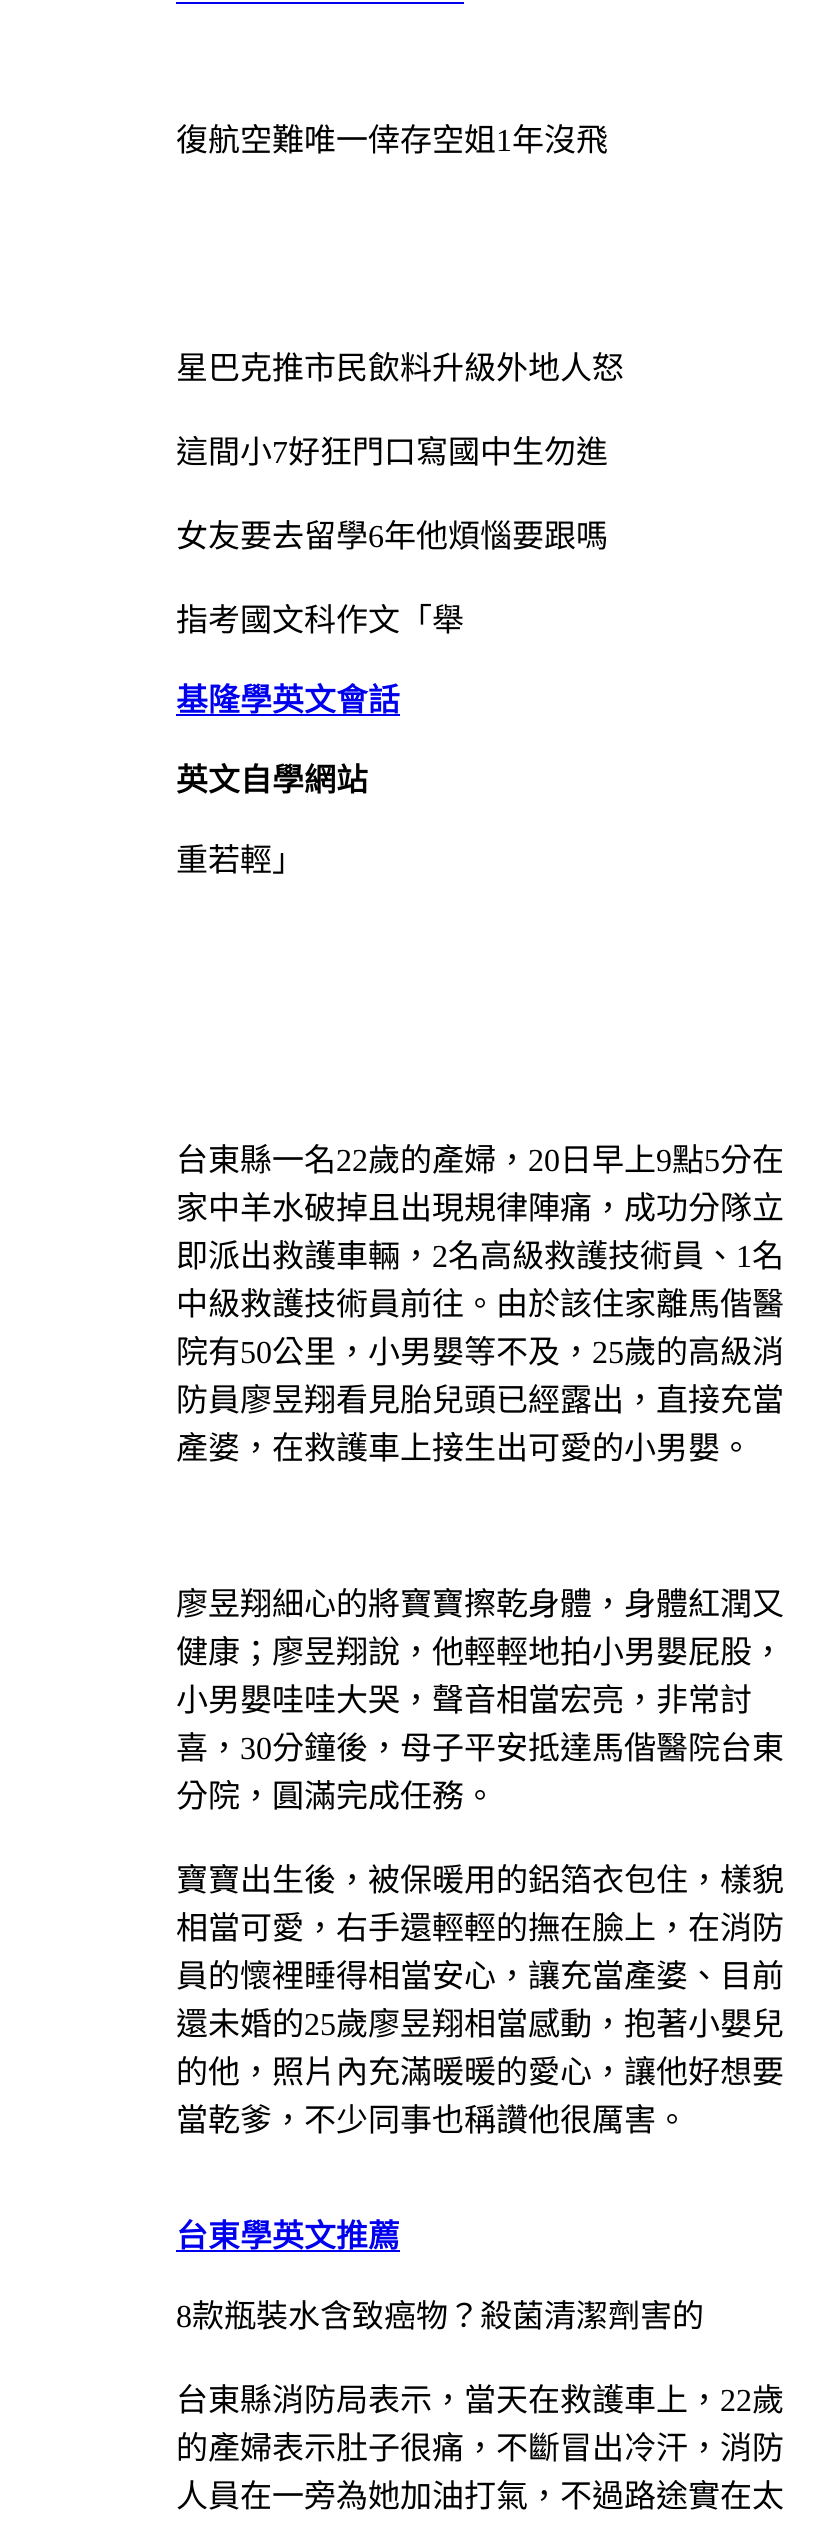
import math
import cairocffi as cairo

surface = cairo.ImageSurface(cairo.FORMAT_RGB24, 814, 2531)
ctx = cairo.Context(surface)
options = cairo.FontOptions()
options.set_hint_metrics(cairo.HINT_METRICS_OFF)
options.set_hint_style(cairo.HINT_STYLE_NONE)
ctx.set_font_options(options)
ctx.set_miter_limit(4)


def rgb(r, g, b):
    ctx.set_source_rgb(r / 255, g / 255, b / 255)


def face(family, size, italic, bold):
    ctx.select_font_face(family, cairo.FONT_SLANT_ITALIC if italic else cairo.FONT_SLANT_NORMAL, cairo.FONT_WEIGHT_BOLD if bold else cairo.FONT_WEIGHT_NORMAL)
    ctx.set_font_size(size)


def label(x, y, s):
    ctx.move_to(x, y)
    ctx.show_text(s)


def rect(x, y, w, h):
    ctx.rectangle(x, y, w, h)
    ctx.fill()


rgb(255, 255, 255)
ctx.paint()
rgb(0, 0, 238)
rect(176, 2, 288, 2)
face('Noto Sans CJK TC', 32, 0, 0)
rgb(0, 0, 0)
label(176, 151, '復航空難唯一倖存空姐')
face('Liberation Serif', 32, 0, 0)
label(496, 151, '1')
face('Noto Sans CJK TC', 32, 0, 0)
label(512, 151, '年沒飛')
label(176, 379, '星巴克推市民飲料升級外地人怒')
label(176, 463, '這間小')
face('Liberation Serif', 32, 0, 0)
label(272, 463, '7')
face('Noto Sans CJK TC', 32, 0, 0)
label(288, 463, '好狂門口寫國中生勿進')
label(176, 547, '女友要去留學')
face('Liberation Serif', 32, 0, 0)
label(368, 547, '6')
face('Noto Sans CJK TC', 32, 0, 0)
label(384, 547, '年他煩惱要跟嗎')
label(176, 631, '指考國文科作文「舉')
face('Noto Sans CJK TC', 32, 0, 1)
rgb(0, 0, 238)
label(176, 711, '基隆學英文會話')
rect(176, 714, 224, 2)
rgb(0, 0, 0)
label(176, 791, '英文自學網站')
face('Noto Sans CJK TC', 32, 0, 0)
label(176, 871, '重若輕」')
label(176, 1171, '台東縣一名')
face('Liberation Serif', 32, 0, 0)
label(336, 1171, '22')
face('Noto Sans CJK TC', 32, 0, 0)
label(368, 1171, '歲的產婦，')
face('Liberation Serif', 32, 0, 0)
label(528, 1171, '20')
face('Noto Sans CJK TC', 32, 0, 0)
label(560, 1171, '日早上')
face('Liberation Serif', 32, 0, 0)
label(656, 1171, '9')
face('Noto Sans CJK TC', 32, 0, 0)
label(672, 1171, '點')
face('Liberation Serif', 32, 0, 0)
label(704, 1171, '5')
face('Noto Sans CJK TC', 32, 0, 0)
label(720, 1171, '分在')
label(176, 1219, '家中羊水破掉且出現規律陣痛，成功分隊立')
label(176, 1267, '即派出救護車輛，')
face('Liberation Serif', 32, 0, 0)
label(432, 1267, '2')
face('Noto Sans CJK TC', 32, 0, 0)
label(448, 1267, '名高級救護技術員、')
face('Liberation Serif', 32, 0, 0)
label(736, 1267, '1')
face('Noto Sans CJK TC', 32, 0, 0)
label(752, 1267, '名')
label(176, 1315, '中級救護技術員前往。由於該住家離馬偕醫')
label(176, 1363, '院有')
face('Liberation Serif', 32, 0, 0)
label(240, 1363, '50')
face('Noto Sans CJK TC', 32, 0, 0)
label(272, 1363, '公里，小男嬰等不及，')
face('Liberation Serif', 32, 0, 0)
label(592, 1363, '25')
face('Noto Sans CJK TC', 32, 0, 0)
label(624, 1363, '歲的高級消')
label(176, 1411, '防員廖昱翔看見胎兒頭已經露出，直接充當')
label(176, 1459, '產婆，在救護車上接生出可愛的小男嬰。')
label(176, 1615, '廖昱翔細心的將寶寶擦乾身體，身體紅潤又')
label(176, 1663, '健康；廖昱翔說，他輕輕地拍小男嬰屁股，')
label(176, 1711, '小男嬰哇哇大哭，聲音相當宏亮，非常討')
label(176, 1759, '喜，')
face('Liberation Serif', 32, 0, 0)
label(240, 1759, '30')
face('Noto Sans CJK TC', 32, 0, 0)
label(272, 1759, '分鐘後，母子平安抵達馬偕醫院台東')
label(176, 1807, '分院，圓滿完成任務。')
label(176, 1891, '寶寶出生後，被保暖用的鋁箔衣包住，樣貌')
label(176, 1939, '相當可愛，右手還輕輕的撫在臉上，在消防')
label(176, 1987, '員的懷裡睡得相當安心，讓充當產婆、目前')
label(176, 2035, '還未婚的')
face('Liberation Serif', 32, 0, 0)
label(304, 2035, '25')
face('Noto Sans CJK TC', 32, 0, 0)
label(336, 2035, '歲廖昱翔相當感動，抱著小嬰兒')
label(176, 2083, '的他，照片內充滿暖暖的愛心，讓他好想要')
label(176, 2131, '當乾爹，不少同事也稱讚他很厲害。')
face('Noto Sans CJK TC', 32, 0, 1)
rgb(0, 0, 238)
label(176, 2247, '台東學英文推薦')
rect(176, 2250, 224, 2)
face('Liberation Serif', 32, 0, 0)
rgb(0, 0, 0)
label(176, 2327, '8')
face('Noto Sans CJK TC', 32, 0, 0)
label(192, 2327, '款瓶裝水含致癌物？殺菌清潔劑害的')
label(176, 2411, '台東縣消防局表示，當天在救護車上，')
face('Liberation Serif', 32, 0, 0)
label(720, 2411, '22')
face('Noto Sans CJK TC', 32, 0, 0)
label(752, 2411, '歲')
label(176, 2459, '的產婦表示肚子很痛，不斷冒出冷汗，消防')
label(176, 2507, '人員在一旁為她加油打氣，不過路途實在太')
surface.write_to_png('render.png')
